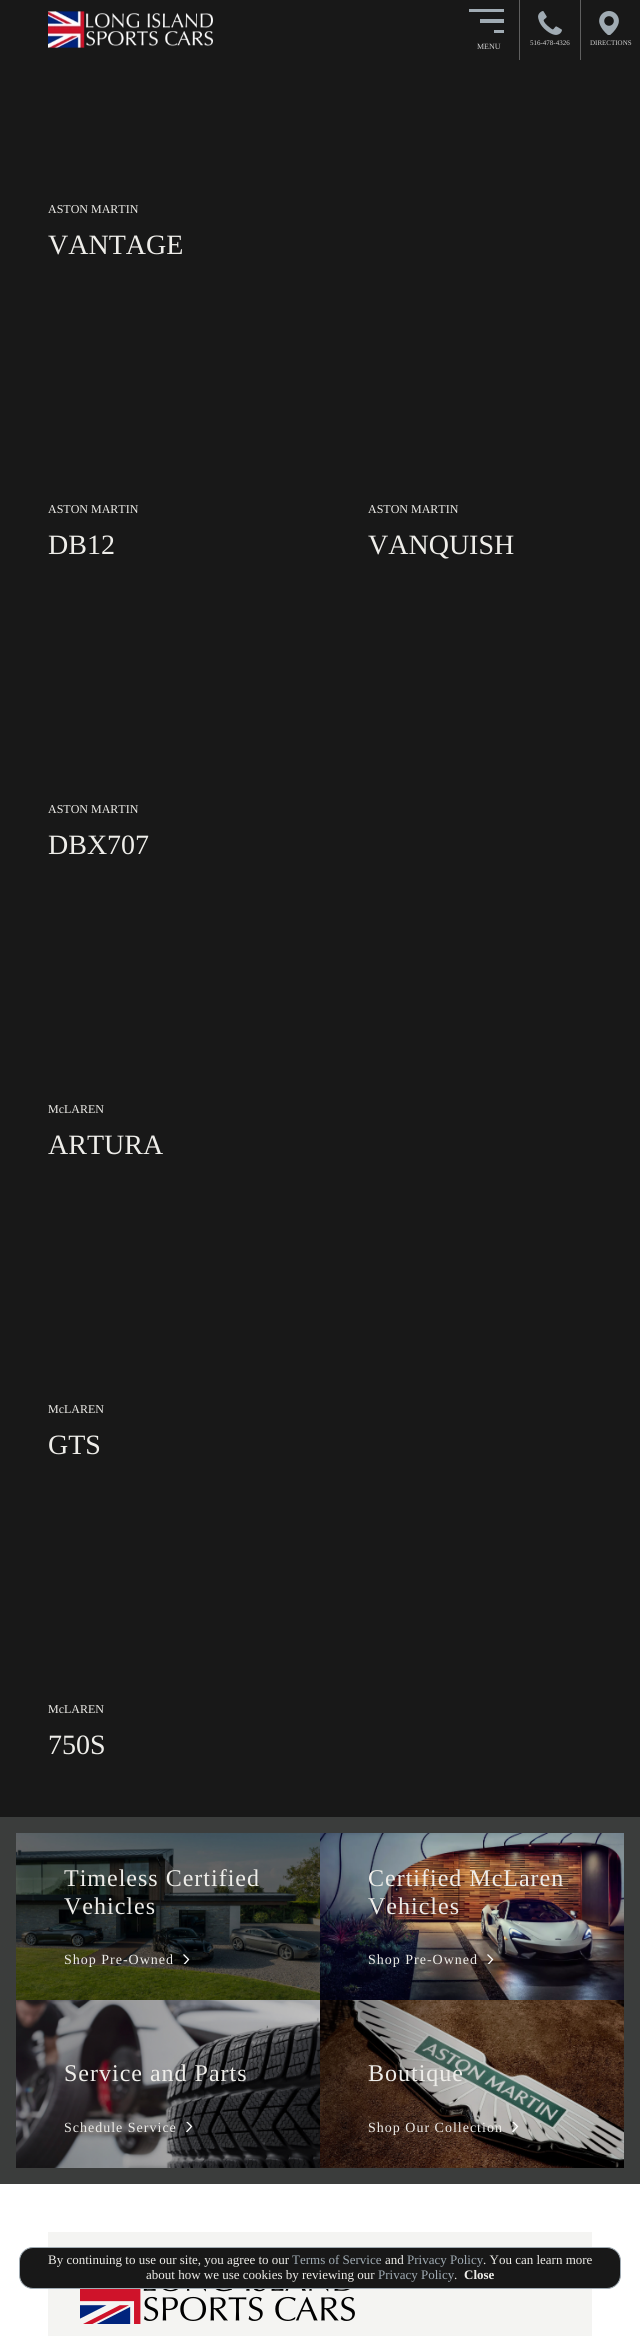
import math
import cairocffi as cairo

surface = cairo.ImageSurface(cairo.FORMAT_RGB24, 640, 2336)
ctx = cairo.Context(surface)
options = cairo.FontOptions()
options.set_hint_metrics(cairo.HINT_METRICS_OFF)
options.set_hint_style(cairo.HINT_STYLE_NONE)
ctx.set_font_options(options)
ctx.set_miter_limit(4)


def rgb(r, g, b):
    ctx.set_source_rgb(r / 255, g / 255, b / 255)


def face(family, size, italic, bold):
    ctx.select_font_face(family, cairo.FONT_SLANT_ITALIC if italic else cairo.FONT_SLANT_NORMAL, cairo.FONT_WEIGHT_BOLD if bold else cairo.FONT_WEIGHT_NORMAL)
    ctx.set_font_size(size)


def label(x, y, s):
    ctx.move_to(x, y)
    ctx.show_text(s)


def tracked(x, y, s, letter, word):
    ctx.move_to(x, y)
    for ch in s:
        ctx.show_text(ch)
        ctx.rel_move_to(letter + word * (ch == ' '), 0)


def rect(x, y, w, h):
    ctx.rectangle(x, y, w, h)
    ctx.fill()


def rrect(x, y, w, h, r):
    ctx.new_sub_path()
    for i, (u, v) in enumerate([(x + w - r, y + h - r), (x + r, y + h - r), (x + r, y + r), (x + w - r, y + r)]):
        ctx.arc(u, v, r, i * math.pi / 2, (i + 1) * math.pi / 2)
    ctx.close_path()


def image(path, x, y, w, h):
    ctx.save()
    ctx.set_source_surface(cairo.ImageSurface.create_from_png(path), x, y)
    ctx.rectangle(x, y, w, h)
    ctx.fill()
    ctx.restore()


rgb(24, 24, 24)
ctx.paint()
image('image0.png', 48, 11, 165, 37)
rgb(160, 171, 179)
rect(469, 9, 35, 3)
rect(480, 19, 24, 4)
rect(494, 30, 10, 3)
face('Liberation Serif', 8, 0, 0)
rgb(211, 211, 211)
label(477, 49, 'MENU')
rgb(95, 95, 95)
rect(519, 0, 1, 60)
image('image1.png', 538, 11, 24, 24)
face('Liberation Serif', 7, 0, 0)
rgb(211, 211, 211)
label(530, 45, '516-478-4326')
rgb(95, 95, 95)
rect(580, 0, 1, 60)
image('image2.png', 599, 11, 20, 24)
rgb(211, 211, 211)
label(590, 45, 'DIRECTIONS')
face('Liberation Serif', 12, 0, 0)
rgb(238, 237, 233)
label(48, 213, 'ASTON MARTIN')
face('Liberation Serif', 28, 0, 0)
label(48, 254, 'VANTAGE')
face('Liberation Serif', 12, 0, 0)
label(48, 513, 'ASTON MARTIN')
face('Liberation Serif', 28, 0, 0)
label(48, 554, 'DB12')
face('Liberation Serif', 12, 0, 0)
label(368, 513, 'ASTON MARTIN')
face('Liberation Serif', 28, 0, 0)
label(368, 554, 'VANQUISH')
face('Liberation Serif', 12, 0, 0)
label(48, 813, 'ASTON MARTIN')
face('Liberation Serif', 28, 0, 0)
label(48, 854, 'DBX707')
face('Liberation Serif', 12, 0, 0)
label(48, 1113, 'McLAREN')
face('Liberation Serif', 28, 0, 0)
label(48, 1154, 'ARTURA')
face('Liberation Serif', 12, 0, 0)
label(48, 1413, 'McLAREN')
face('Liberation Serif', 28, 0, 0)
label(48, 1454, 'GTS')
face('Liberation Serif', 12, 0, 0)
label(48, 1713, 'McLAREN')
face('Liberation Serif', 28, 0, 0)
label(48, 1754, '750S')
rgb(59, 61, 60)
rect(0, 1817, 640, 367)
image('image3.png', 16, 1833, 304, 167)
face('Liberation Serif', 24, 0, 0)
rgb(238, 237, 233)
tracked(64, 1886, 'Timeless Certified', 1, 0)
tracked(64, 1914, 'Vehicles', 1, 0)
face('Liberation Serif', 14, 0, 0)
tracked(64, 1964, 'Shop Pre-Owned', 1, 0)
ctx.save()
ctx.rectangle(182, 1954, 8, 10)
ctx.clip()
ctx.new_path()
ctx.move_to(183.5, 1954.5)
ctx.line_to(188.5, 1959.5)
ctx.line_to(183.5, 1965)
rgb(255, 255, 255)
ctx.set_line_width(1.3)
ctx.stroke()
ctx.restore()
image('image4.png', 320, 1833, 304, 167)
face('Liberation Serif', 24, 0, 0)
tracked(368, 1886, 'Certified McLaren', 1, 0)
tracked(368, 1914, 'Vehicles', 1, 0)
face('Liberation Serif', 14, 0, 0)
tracked(368, 1964, 'Shop Pre-Owned', 1, 0)
ctx.save()
ctx.rectangle(486, 1954, 8, 10)
ctx.clip()
ctx.new_path()
ctx.move_to(487.5, 1954.5)
ctx.line_to(492.5, 1959.5)
ctx.line_to(487.5, 1965)
rgb(255, 255, 255)
ctx.set_line_width(1.3)
ctx.stroke()
ctx.restore()
image('image5.png', 16, 2000, 304, 168)
face('Liberation Serif', 24, 0, 0)
tracked(64, 2081, 'Service and Parts', 1, 0)
face('Liberation Serif', 14, 0, 0)
tracked(64, 2132, 'Schedule Service', 1, 0)
ctx.save()
ctx.rectangle(185, 2122, 8, 10)
ctx.clip()
ctx.new_path()
ctx.move_to(186.5, 2121.5)
ctx.line_to(191.5, 2126.5)
ctx.line_to(186.5, 2132)
rgb(255, 255, 255)
ctx.set_line_width(1.3)
ctx.stroke()
ctx.restore()
image('image6.png', 320, 2000, 304, 168)
face('Liberation Serif', 24, 0, 0)
tracked(368, 2081, 'Boutique', 1, 0)
face('Liberation Serif', 14, 0, 0)
tracked(368, 2132, 'Shop Our Collection', 1, 0)
ctx.save()
ctx.rectangle(511, 2122, 8, 10)
ctx.clip()
ctx.new_path()
ctx.move_to(512.5, 2121.5)
ctx.line_to(517.5, 2126.5)
ctx.line_to(512.5, 2132)
rgb(255, 255, 255)
ctx.set_line_width(1.3)
ctx.stroke()
ctx.restore()
rgb(255, 255, 255)
rect(0, 2184, 640, 152)
rgb(244, 244, 242)
rect(48, 2232, 544, 104)
image('image7.png', 80, 2289, 275, 35)
rgb(24, 24, 24)
rrect(19.5, 2247.5, 601, 41, 13.5)
ctx.fill_preserve()
rgb(160, 171, 179)
ctx.set_line_width(1)
ctx.stroke()
face('Liberation Serif', 13, 0, 0)
rgb(238, 237, 233)
label(48, 2264, 'By continuing to use our site, you agree to our')
rgb(160, 171, 179)
label(292, 2264, 'Terms of Service')
rgb(238, 237, 233)
label(385, 2264, 'and')
rgb(160, 171, 179)
label(407, 2264, 'Privacy Policy')
rgb(238, 237, 233)
label(483, 2264, '. You can learn more')
label(146, 2279, 'about how we use cookies by reviewing our')
rgb(160, 171, 179)
label(378, 2279, 'Privacy Policy')
rgb(238, 237, 233)
label(454, 2279, '.')
face('Liberation Serif', 13, 0, 1)
label(464, 2279, 'Close')
surface.write_to_png('render.png')
